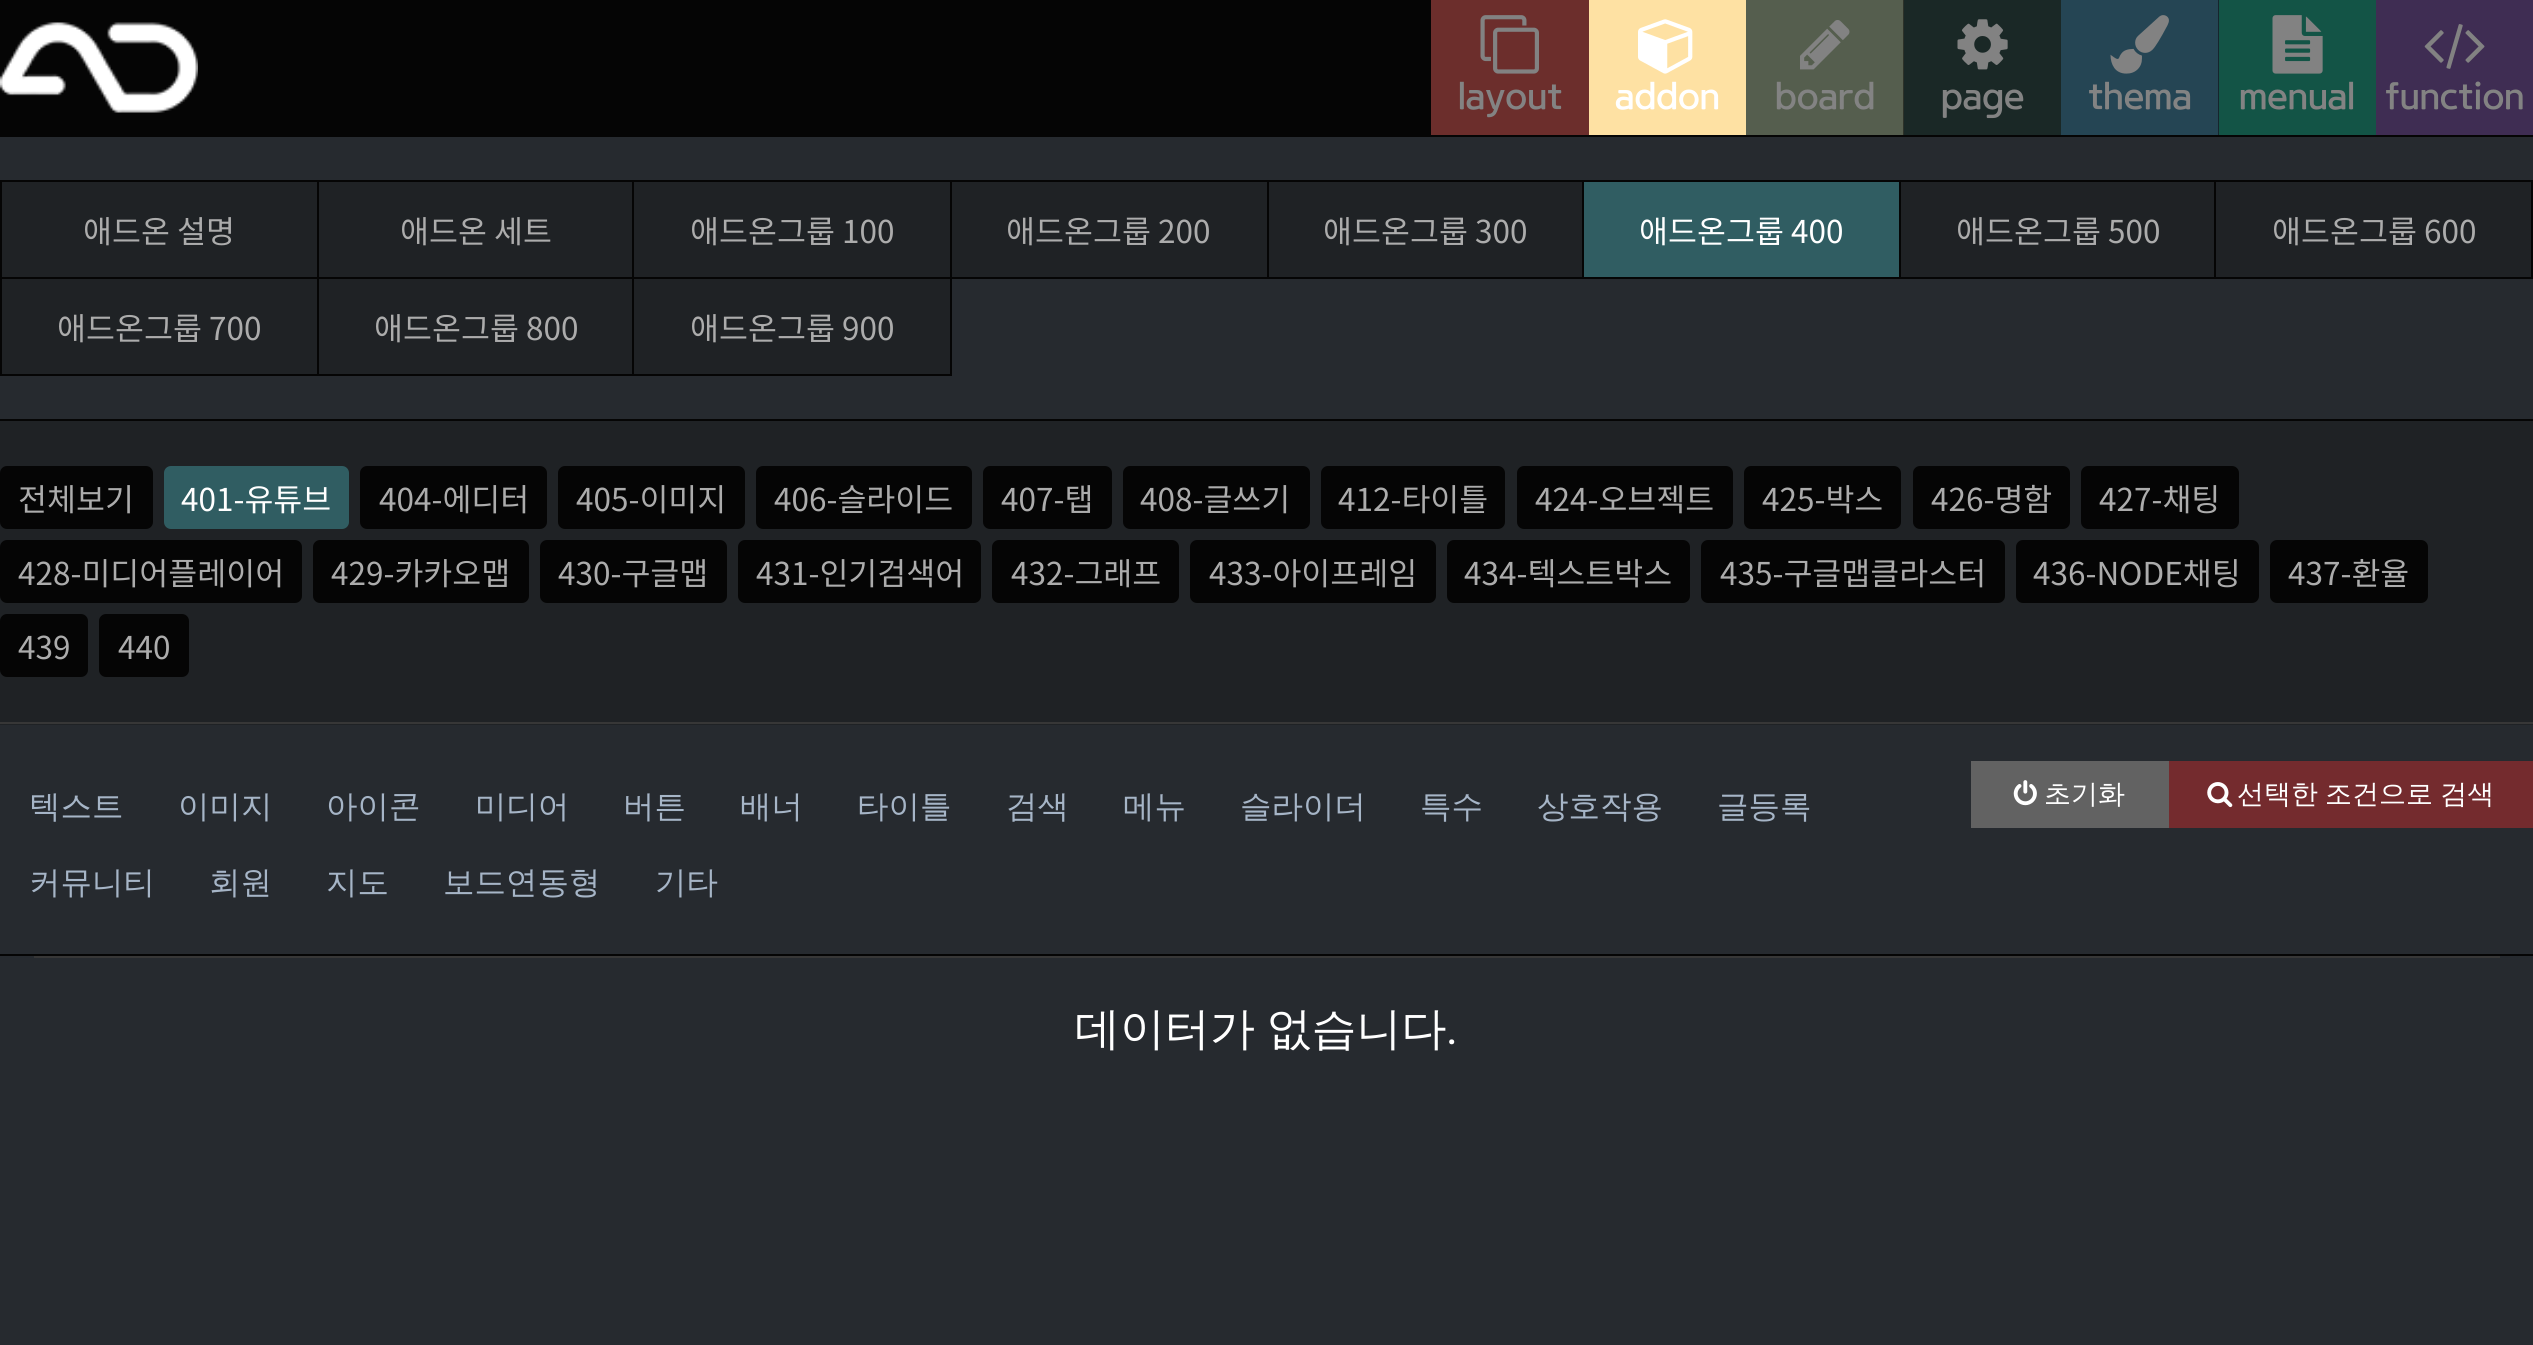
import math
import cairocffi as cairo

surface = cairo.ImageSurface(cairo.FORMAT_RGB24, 2533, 1345)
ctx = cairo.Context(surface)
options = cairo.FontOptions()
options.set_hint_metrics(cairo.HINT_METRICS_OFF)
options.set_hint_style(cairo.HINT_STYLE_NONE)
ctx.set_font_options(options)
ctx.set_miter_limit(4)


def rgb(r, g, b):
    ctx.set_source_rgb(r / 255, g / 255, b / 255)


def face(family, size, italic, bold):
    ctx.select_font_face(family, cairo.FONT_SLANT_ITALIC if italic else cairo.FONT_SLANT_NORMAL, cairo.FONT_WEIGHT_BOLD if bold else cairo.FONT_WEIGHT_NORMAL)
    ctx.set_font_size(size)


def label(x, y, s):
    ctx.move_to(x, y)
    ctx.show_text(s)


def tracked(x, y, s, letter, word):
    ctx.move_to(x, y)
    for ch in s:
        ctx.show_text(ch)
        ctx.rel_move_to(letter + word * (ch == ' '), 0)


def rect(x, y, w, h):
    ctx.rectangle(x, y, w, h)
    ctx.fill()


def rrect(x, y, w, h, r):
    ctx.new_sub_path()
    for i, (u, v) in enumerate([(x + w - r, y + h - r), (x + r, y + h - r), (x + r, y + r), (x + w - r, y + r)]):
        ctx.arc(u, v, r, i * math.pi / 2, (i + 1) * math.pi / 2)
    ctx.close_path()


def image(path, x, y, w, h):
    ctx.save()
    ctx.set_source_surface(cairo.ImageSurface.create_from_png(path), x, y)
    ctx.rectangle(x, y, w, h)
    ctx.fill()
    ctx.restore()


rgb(38, 42, 47)
ctx.paint()
rgb(5, 5, 5)
rect(0, 0, 2533, 137)
image('image0.png', 0, 22, 198, 91)
rgb(108, 46, 44)
rect(1431, 0, 158, 135)
image('image1.png', 1480, 15, 59, 59)
face('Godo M', 36, 0, 0)
rgb(131, 131, 131)
label(1458, 108, 'layout')
rgb(254, 225, 163)
rect(1589, 0, 157, 135)
image('image2.png', 1638, 19, 55, 55)
rgb(255, 255, 255)
label(1615, 108, 'addon')
rgb(85, 94, 78)
rect(1746, 0, 157, 135)
rgb(45, 50, 41)
rect(1903, 0, 1, 135)
image('image3.png', 1800, 20, 50, 50)
rgb(131, 131, 131)
label(1775, 108, 'board')
rgb(26, 40, 38)
rect(1904, 0, 157, 135)
image('image4.png', 1957, 19, 51, 51)
rgb(131, 131, 131)
label(1941, 108, 'page')
rgb(37, 69, 84)
rect(2061, 0, 157, 135)
rgb(22, 37, 45)
rect(2218, 0, 1, 135)
image('image5.png', 2110, 15, 59, 59)
rgb(131, 131, 131)
label(2088, 108, 'thema')
rgb(19, 84, 70)
rect(2219, 0, 157, 135)
image('image6.png', 2272, 15, 51, 59)
rgb(131, 131, 131)
label(2239, 108, 'menual')
rgb(63, 45, 83)
rect(2376, 0, 157, 135)
image('image7.png', 2424, 24, 61, 45)
rgb(131, 131, 131)
label(2385, 108, 'function')
rgb(5, 5, 5)
rect(0, 182, 2, 194)
rgb(31, 34, 37)
rect(2, 182, 948, 95)
rgb(5, 5, 5)
rect(317, 182, 2, 97)
rect(2, 277, 318, 2)
rect(0, 180, 2533, 2)
face('Noto Sans KR', 31.5, 0, 0)
rgb(172, 172, 172)
label(83, 243, '애드온 설명')
rgb(5, 5, 5)
rect(632, 182, 2, 97)
rect(320, 277, 315, 2)
rgb(172, 172, 172)
label(400, 243, '애드온 세트')
rgb(5, 5, 5)
rect(950, 182, 2, 194)
rect(635, 277, 317, 2)
rgb(172, 172, 172)
label(690, 243, '애드온그룹 100')
rgb(31, 34, 37)
rect(952, 182, 315, 95)
rgb(5, 5, 5)
rect(1267, 182, 2, 97)
rect(952, 277, 317, 2)
rgb(172, 172, 172)
label(1006, 243, '애드온그룹 200')
rgb(31, 34, 37)
rect(1269, 182, 313, 95)
rgb(5, 5, 5)
rect(1582, 182, 2, 97)
rect(1269, 277, 315, 2)
rgb(172, 172, 172)
label(1323, 243, '애드온그룹 300')
rgb(48, 93, 98)
rect(1584, 182, 315, 95)
rgb(5, 5, 5)
rect(1899, 182, 2, 97)
rect(1584, 277, 317, 2)
rgb(255, 255, 255)
label(1639, 243, '애드온그룹 400')
rgb(31, 34, 37)
rect(1901, 182, 313, 95)
rgb(5, 5, 5)
rect(2214, 182, 2, 97)
rect(1901, 277, 315, 2)
rgb(172, 172, 172)
label(1956, 243, '애드온그룹 500')
rgb(31, 34, 37)
rect(2216, 182, 315, 95)
rgb(5, 5, 5)
rect(2531, 182, 2, 97)
rect(2216, 277, 317, 2)
rgb(172, 172, 172)
label(2272, 243, '애드온그룹 600')
rgb(31, 34, 37)
rect(2, 279, 948, 95)
rgb(5, 5, 5)
rect(317, 279, 2, 97)
rect(2, 374, 318, 2)
rgb(172, 172, 172)
label(57, 340, '애드온그룹 700')
rgb(5, 5, 5)
rect(632, 279, 2, 97)
rect(320, 374, 632, 2)
rgb(172, 172, 172)
label(374, 340, '애드온그룹 800')
label(690, 340, '애드온그룹 900')
rgb(31, 34, 37)
rect(0, 421, 2533, 304)
rgb(5, 5, 5)
rect(0, 419, 2533, 2)
rgb(55, 55, 55)
rect(0, 722, 2533, 2)
rgb(5, 5, 5)
rrect(0, 466, 153, 63, 7)
ctx.fill()
rgb(172, 172, 172)
label(18, 511, '전체보기')
rgb(48, 93, 98)
rrect(164, 466, 185, 63, 7)
ctx.fill()
rgb(255, 255, 255)
label(181, 511, '401-유튜브')
rgb(5, 5, 5)
rrect(360, 466, 187, 63, 7)
ctx.fill()
rgb(172, 172, 172)
label(379, 511, '404-에디터')
rgb(5, 5, 5)
rrect(558, 466, 187, 63, 7)
ctx.fill()
rgb(172, 172, 172)
label(576, 511, '405-이미지')
rgb(5, 5, 5)
rrect(756, 466, 216, 63, 7)
ctx.fill()
rgb(172, 172, 172)
label(774, 511, '406-슬라이드')
rgb(5, 5, 5)
rrect(983, 466, 129, 63, 7)
ctx.fill()
rgb(172, 172, 172)
label(1001, 511, '407-탭')
rgb(5, 5, 5)
rrect(1123, 466, 187, 63, 7)
ctx.fill()
rgb(172, 172, 172)
label(1140, 511, '408-글쓰기')
rgb(5, 5, 5)
rrect(1321, 466, 184, 63, 7)
ctx.fill()
rgb(172, 172, 172)
label(1338, 511, '412-타이틀')
rgb(5, 5, 5)
rrect(1517, 466, 216, 63, 7)
ctx.fill()
rgb(172, 172, 172)
label(1535, 511, '424-오브젝트')
rgb(5, 5, 5)
rrect(1744, 466, 157, 63, 7)
ctx.fill()
rgb(172, 172, 172)
label(1762, 511, '425-박스')
rgb(5, 5, 5)
rrect(1913, 466, 157, 63, 7)
ctx.fill()
rgb(172, 172, 172)
label(1931, 511, '426-명함')
rgb(5, 5, 5)
rrect(2081, 466, 158, 63, 7)
ctx.fill()
rgb(172, 172, 172)
label(2099, 511, '427-채팅')
rgb(5, 5, 5)
rrect(0, 540, 302, 63, 7)
ctx.fill()
rgb(172, 172, 172)
label(18, 585, '428-미디어플레이어')
rgb(5, 5, 5)
rrect(313, 540, 216, 63, 7)
ctx.fill()
rgb(172, 172, 172)
label(331, 585, '429-카카오맵')
rgb(5, 5, 5)
rrect(540, 540, 187, 63, 7)
ctx.fill()
rgb(172, 172, 172)
label(558, 585, '430-구글맵')
rgb(5, 5, 5)
rrect(738, 540, 243, 63, 7)
ctx.fill()
rgb(172, 172, 172)
label(756, 585, '431-인기검색어')
rgb(5, 5, 5)
rrect(992, 540, 187, 63, 7)
ctx.fill()
rgb(172, 172, 172)
label(1011, 585, '432-그래프')
rgb(5, 5, 5)
rrect(1190, 540, 246, 63, 7)
ctx.fill()
rgb(172, 172, 172)
label(1209, 585, '433-아이프레임')
rgb(5, 5, 5)
rrect(1447, 540, 243, 63, 7)
ctx.fill()
rgb(172, 172, 172)
label(1464, 585, '434-텍스트박스')
rgb(5, 5, 5)
rrect(1701, 540, 304, 63, 7)
ctx.fill()
rgb(172, 172, 172)
label(1720, 585, '435-구글맵클라스터')
rgb(5, 5, 5)
rrect(2016, 540, 243, 63, 7)
ctx.fill()
rgb(172, 172, 172)
label(2033, 585, '436-NODE채팅')
rgb(5, 5, 5)
rrect(2270, 540, 158, 63, 7)
ctx.fill()
rgb(172, 172, 172)
label(2288, 585, '437-환율')
rgb(5, 5, 5)
rrect(0, 614, 88, 63, 7)
ctx.fill()
rgb(172, 172, 172)
label(18, 659, '439')
rgb(5, 5, 5)
rrect(99, 614, 90, 63, 7)
ctx.fill()
rgb(172, 172, 172)
label(118, 659, '440')
face('WenQuanYi Zen Hei Medium', 31.5, 0, 0)
rgb(166, 181, 199)
label(29, 817, '텍스트')
label(178, 817, '이미지')
label(326, 817, '아이콘')
label(475, 817, '미디어')
label(623, 817, '버튼')
label(740, 817, '배너')
label(857, 817, '타이틀')
label(1006, 817, '검색')
label(1123, 817, '메뉴')
label(1240, 817, '슬라이더')
label(1420, 817, '특수')
label(1537, 817, '상호작용')
label(1717, 817, '글등록')
label(29, 893, '커뮤니티')
label(209, 893, '회원')
label(326, 893, '지도')
label(443, 893, '보드연동형')
label(655, 893, '기타')
rgb(98, 98, 98)
rect(1971, 761, 198, 67)
image('image8.png', 2013, 780, 24, 26)
face('WenQuanYi Zen Hei Medium', 27, 0, 0)
rgb(255, 255, 255)
label(2044, 803, '초기화')
rgb(116, 43, 46)
rect(2169, 761, 364, 67)
image('image9.png', 2207, 782, 26, 26)
rgb(255, 255, 255)
tracked(2237, 803, '선택한 조건으로 검색', 0, -1)
rgb(5, 5, 5)
rect(0, 954, 2533, 2)
rgb(55, 55, 55)
rect(34, 956, 2466, 2)
face('WenQuanYi Zen Hei Medium', 45, 0, 0)
rgb(255, 255, 255)
tracked(1075, 1044, '데이터가 없습니다', 0, -2)
face('Roboto', 45, 0, 0)
label(1446, 1044, '.')
surface.write_to_png('render.png')
